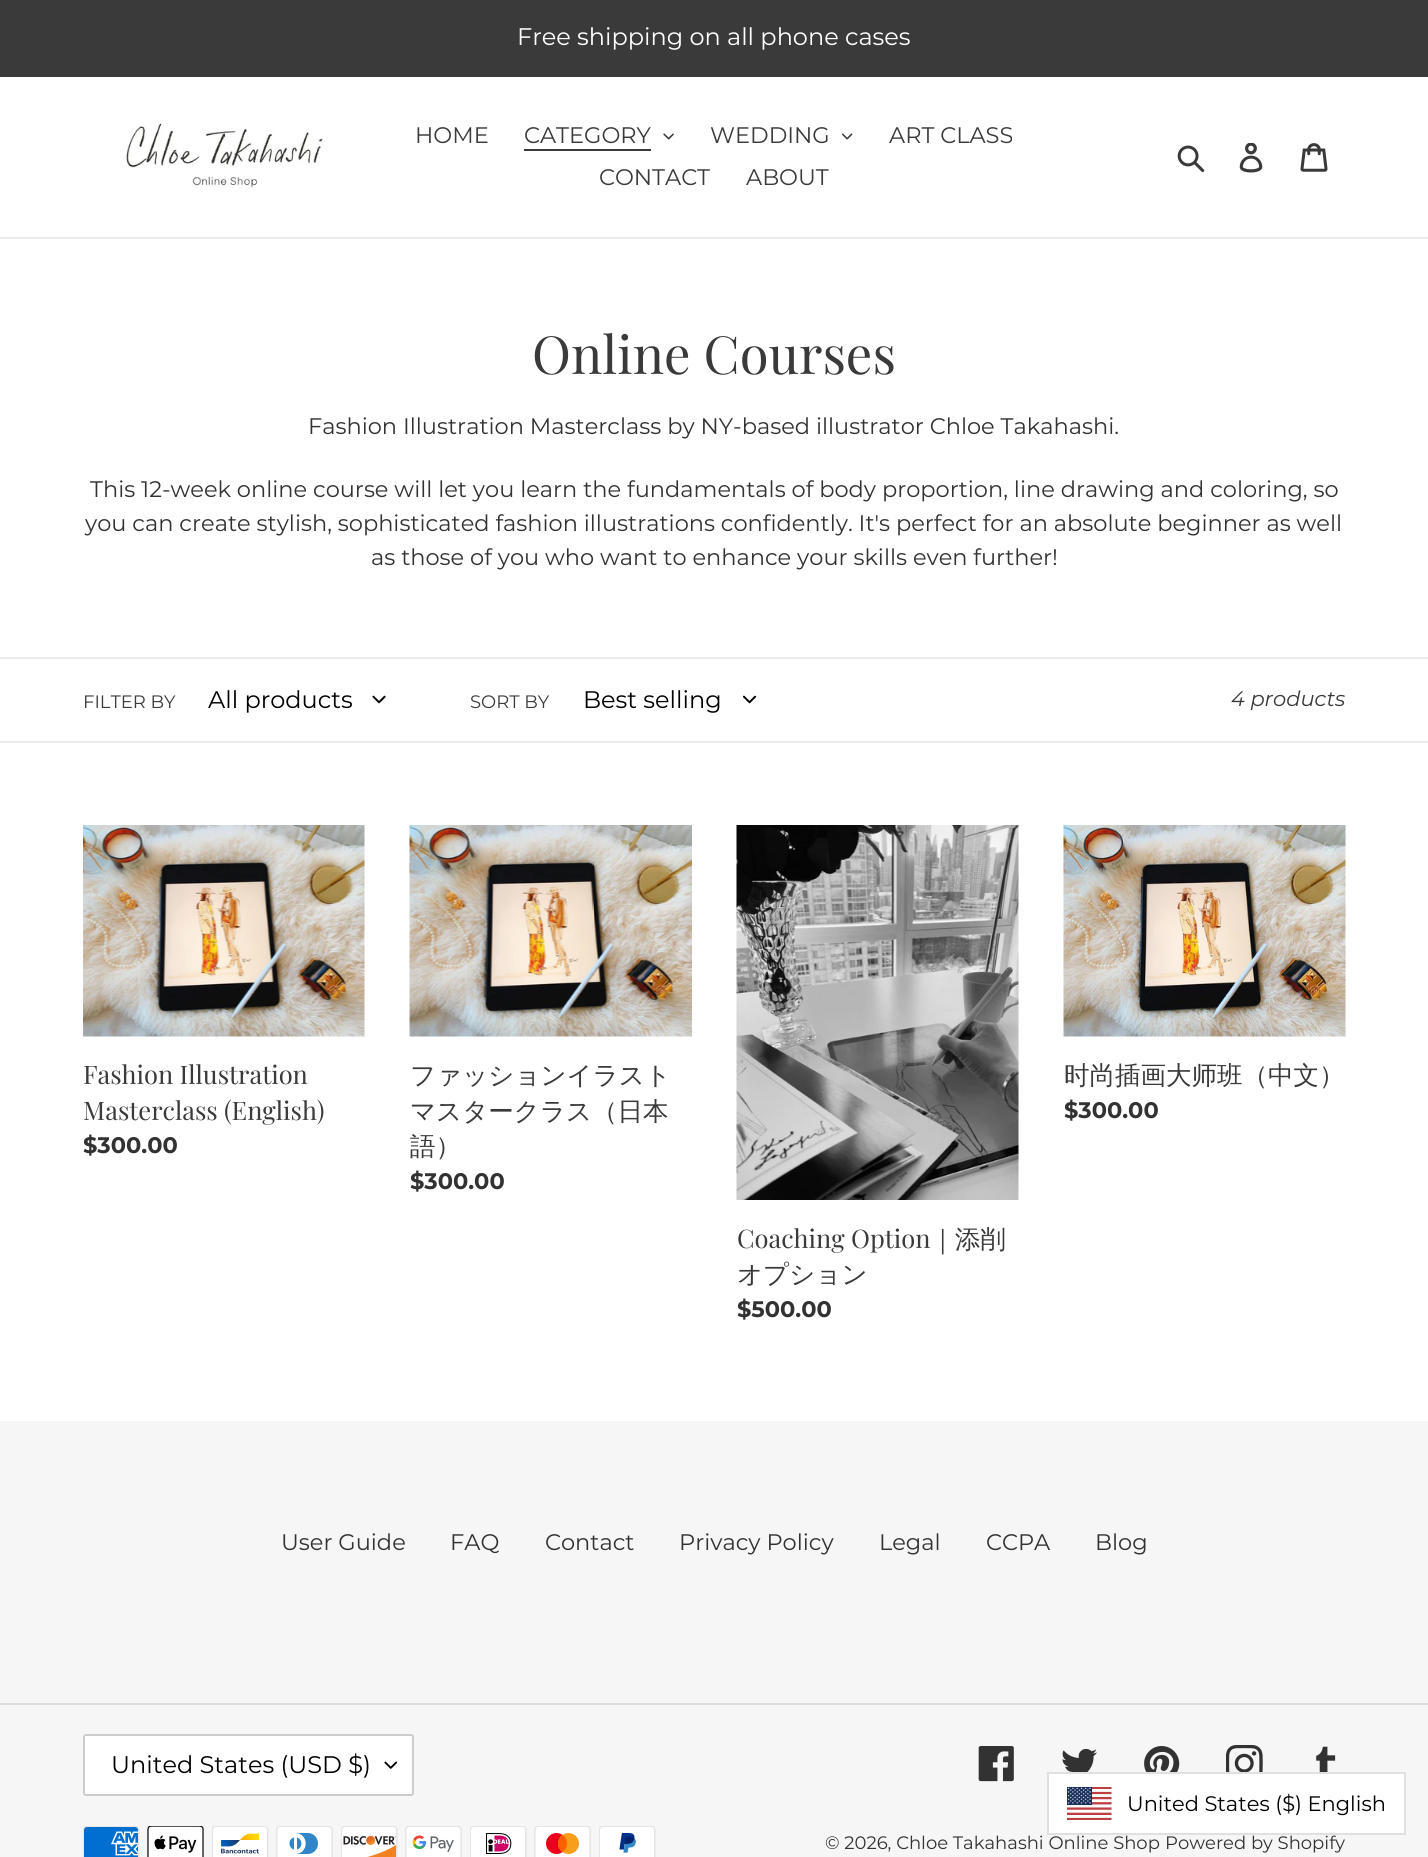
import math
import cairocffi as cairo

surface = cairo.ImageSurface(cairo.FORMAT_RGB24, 1428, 1857)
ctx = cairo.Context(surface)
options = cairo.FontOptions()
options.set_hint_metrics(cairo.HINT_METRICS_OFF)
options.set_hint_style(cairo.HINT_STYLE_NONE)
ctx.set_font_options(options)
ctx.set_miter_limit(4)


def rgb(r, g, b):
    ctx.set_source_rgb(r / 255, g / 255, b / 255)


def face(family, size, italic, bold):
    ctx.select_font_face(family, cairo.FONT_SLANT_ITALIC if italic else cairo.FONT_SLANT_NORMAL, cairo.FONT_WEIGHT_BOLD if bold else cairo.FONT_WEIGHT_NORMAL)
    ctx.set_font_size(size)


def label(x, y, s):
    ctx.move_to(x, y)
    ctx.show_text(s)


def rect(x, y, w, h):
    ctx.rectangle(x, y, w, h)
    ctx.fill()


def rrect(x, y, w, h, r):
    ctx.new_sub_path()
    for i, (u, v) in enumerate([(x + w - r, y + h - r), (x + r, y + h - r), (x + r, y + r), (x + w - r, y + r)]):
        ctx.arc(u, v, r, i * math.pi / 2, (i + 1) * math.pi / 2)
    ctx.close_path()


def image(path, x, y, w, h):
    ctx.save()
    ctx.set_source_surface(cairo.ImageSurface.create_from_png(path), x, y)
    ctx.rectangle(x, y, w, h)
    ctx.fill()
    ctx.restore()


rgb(255, 255, 255)
ctx.paint()
rgb(58, 58, 58)
rect(0, 0, 1428, 77)
face('Montserrat', 24, 0, 0)
rgb(255, 255, 255)
label(517, 45, 'Free shipping on all phone cases')
rgb(235, 235, 235)
rect(0, 237, 1428, 2)
image('image0.png', 126, 123, 197, 65)
face('Montserrat', 22.5, 0, 0)
rgb(58, 58, 58)
label(415, 143, 'HOME')
label(524, 143, 'CATEGORY')
rect(524, 149, 127, 2)
image('image1.png', 663, 133, 11, 7)
label(710, 143, 'WEDDING')
image('image2.png', 842, 133, 11, 7)
label(889, 143, 'ART CLASS')
label(599, 185, 'CONTACT')
label(746, 185, 'ABOUT')
image('image3.png', 1177, 145, 28, 28)
image('image4.png', 1239, 143, 24, 30)
image('image5.png', 1300, 143, 28, 29)
face('Playfair Display', 52.5, 0, 0)
label(532, 374, 'Online Courses')
face('Montserrat', 22.5, 0, 0)
rgb(51, 50, 50)
label(308, 434, 'Fashion Illustration Masterclass by NY-based illustrator Chloe Takahashi.')
label(90, 497, 'This 12-week online course will let you learn the fundamentals of body proportion, line drawing and coloring, so')
label(85, 531, 'you can create stylish, sophisticated fashion illustrations confidently. It\'s perfect for an absolute beginner as well')
label(371, 565, 'as those of you who want to enhance your skills even further!')
rgb(235, 235, 235)
rect(0, 657, 1428, 2)
rect(0, 741, 1428, 2)
face('Montserrat', 18, 0, 0)
rgb(58, 58, 58)
label(83, 708, 'FILTER BY')
face('Montserrat', 24, 0, 0)
rgb(0, 0, 0)
label(208, 708, 'All products')
image('image6.png', 372, 695, 14, 9)
face('Montserrat', 18, 0, 0)
rgb(58, 58, 58)
label(470, 708, 'SORT BY')
face('Montserrat', 24, 0, 0)
rgb(0, 0, 0)
label(583, 708, 'Best selling')
image('image7.png', 743, 695, 13, 9)
face('Montserrat', 21, 1, 0)
rgb(58, 58, 58)
label(1231, 706, '4 products')
image('image8.png', 83, 825, 282, 212)
face('Playfair Display', 25.5, 0, 0)
label(83, 1084, 'Fashion Illustration')
label(83, 1120, 'Masterclass (English)')
face('Montserrat', 22.5, 0, 1)
rgb(51, 50, 50)
label(83, 1153, '$300.00')
image('image9.png', 409, 825, 283, 212)
face('WenQuanYi Zen Hei Medium', 25.5, 0, 0)
rgb(58, 58, 58)
label(410, 1084, 'ファッションイラスト')
label(410, 1120, 'マスタークラス（日本')
label(410, 1155, '語）')
face('Montserrat', 22.5, 0, 1)
rgb(51, 50, 50)
label(410, 1189, '$300.00')
image('image10.png', 1063, 825, 283, 212)
face('WenQuanYi Zen Hei Medium', 25.5, 0, 0)
rgb(58, 58, 58)
label(1064, 1084, '时尚插画大师班（中文）')
face('Montserrat', 22.5, 0, 1)
rgb(51, 50, 50)
label(1064, 1118, '$300.00')
image('image11.png', 736, 825, 283, 375)
face('Playfair Display', 25.5, 0, 0)
rgb(58, 58, 58)
label(737, 1248, 'Coaching Option')
face('WenQuanYi Zen Hei Medium', 25.5, 0, 0)
label(930, 1248, '｜添削')
label(737, 1283, 'オプション')
face('Montserrat', 22.5, 0, 1)
rgb(51, 50, 50)
label(737, 1317, '$500.00')
rgb(246, 246, 246)
rect(0, 1421, 1428, 436)
face('Montserrat', 22.5, 0, 0)
rgb(51, 50, 50)
label(281, 1550, 'User Guide')
label(450, 1550, 'FAQ')
label(545, 1550, 'Contact')
label(679, 1550, 'Privacy Policy')
label(879, 1550, 'Legal')
label(986, 1550, 'CCPA')
label(1095, 1550, 'Blog')
rgb(221, 221, 221)
rect(0, 1703, 1428, 2)
rgb(255, 255, 255)
rrect(83, 1734, 331, 62, 3)
ctx.fill()
image('image12.png', 384, 1761, 14, 8)
rrect(84, 1735, 329, 60, 2)
rgb(204, 204, 204)
ctx.stroke()
face('Montserrat', 24, 0, 0)
rgb(0, 0, 0)
label(111, 1773, 'United States (USD $)')
image('image13.png', 978, 1746, 36, 36)
image('image14.png', 1062, 1748, 35, 24)
image('image15.png', 1144, 1746, 36, 26)
image('image16.png', 1226, 1745, 37, 27)
image('image17.png', 1316, 1746, 20, 26)
image('image18.png', 83, 1826, 57, 31)
image('image19.png', 147, 1826, 57, 31)
image('image20.png', 212, 1826, 57, 31)
image('image21.png', 276, 1826, 57, 31)
image('image22.png', 341, 1826, 57, 31)
image('image23.png', 405, 1826, 57, 31)
image('image24.png', 470, 1826, 57, 31)
image('image25.png', 534, 1826, 57, 31)
image('image26.png', 599, 1826, 57, 31)
face('Montserrat', 18, 0, 0)
rgb(51, 50, 50)
label(825, 1849, '© 2026, Chloe Takahashi Online Shop')
label(1165, 1849, 'Powered by Shopify')
rgb(255, 255, 255)
ctx.rectangle(1048, 1773, 357, 61)
ctx.fill_preserve()
rgb(224, 224, 224)
ctx.stroke()
image('image27.png', 1067, 1787, 45, 33)
face('Montserrat', 21, 0, 0)
rgb(0, 0, 0)
label(1127, 1811, 'United States ($) English')
surface.write_to_png('render.png')
